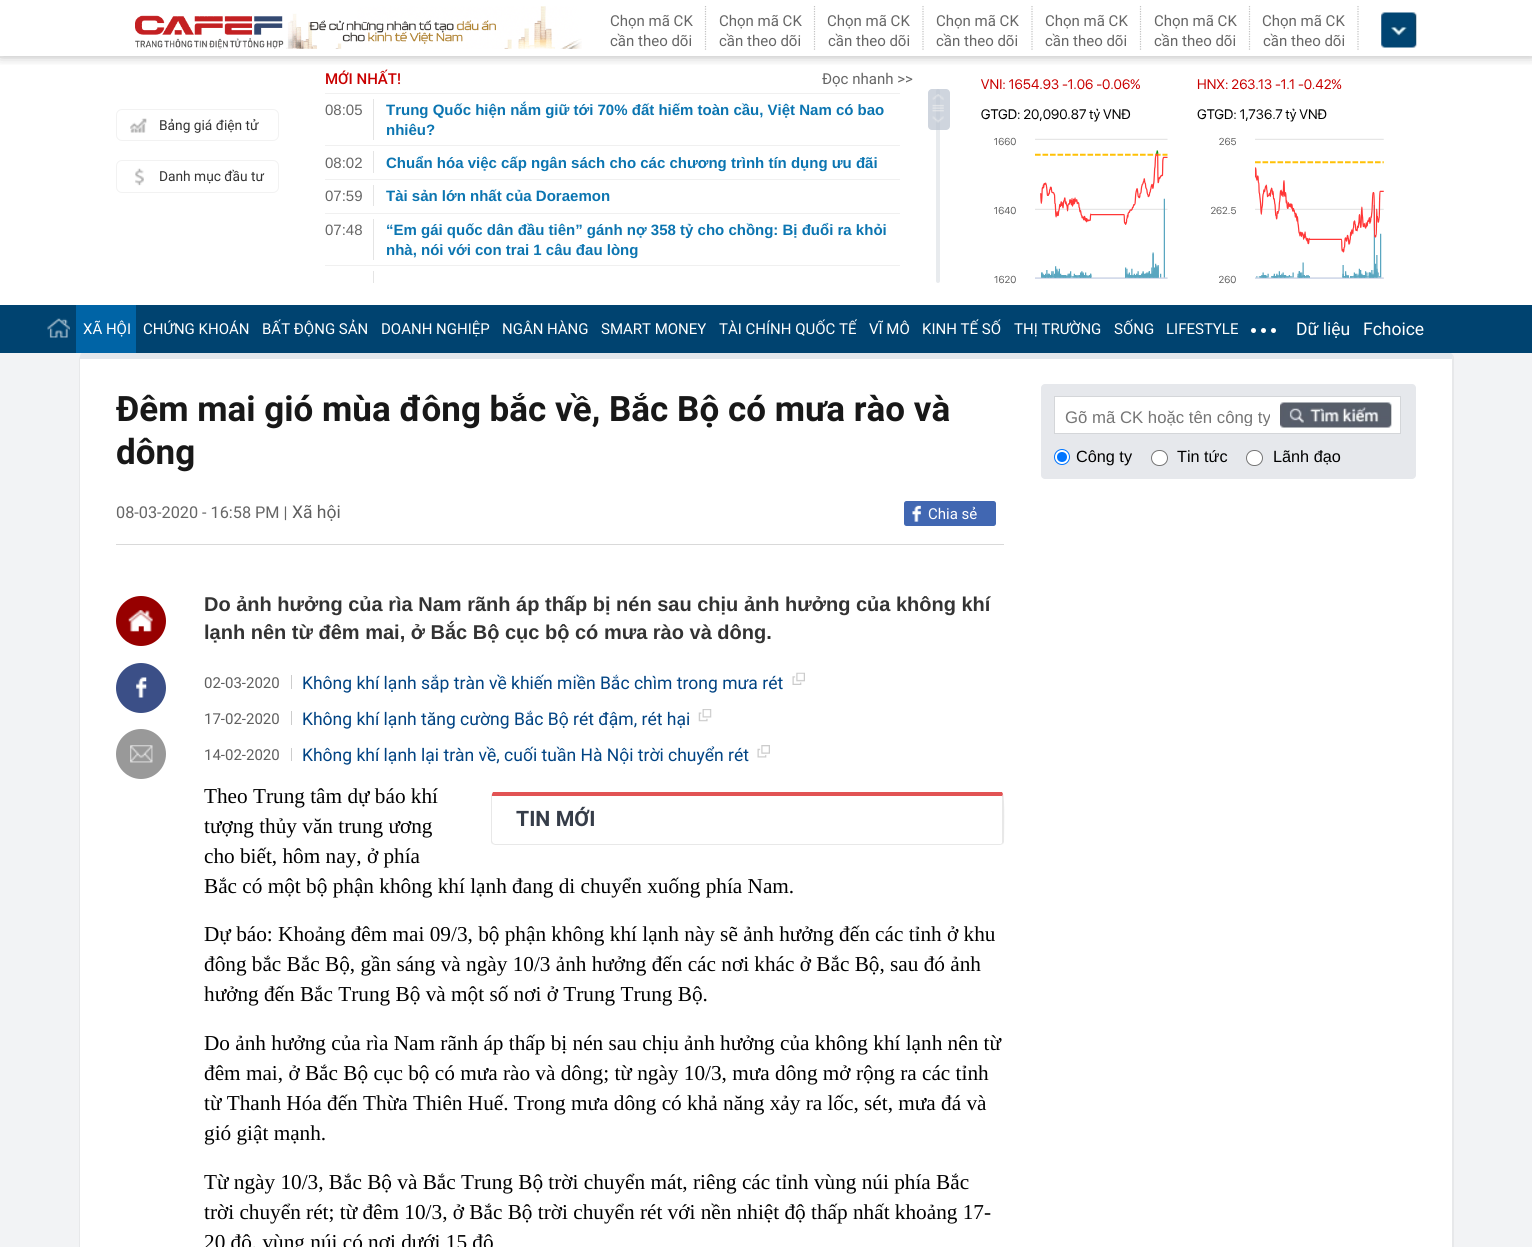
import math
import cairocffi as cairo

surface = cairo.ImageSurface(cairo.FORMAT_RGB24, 1532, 1247)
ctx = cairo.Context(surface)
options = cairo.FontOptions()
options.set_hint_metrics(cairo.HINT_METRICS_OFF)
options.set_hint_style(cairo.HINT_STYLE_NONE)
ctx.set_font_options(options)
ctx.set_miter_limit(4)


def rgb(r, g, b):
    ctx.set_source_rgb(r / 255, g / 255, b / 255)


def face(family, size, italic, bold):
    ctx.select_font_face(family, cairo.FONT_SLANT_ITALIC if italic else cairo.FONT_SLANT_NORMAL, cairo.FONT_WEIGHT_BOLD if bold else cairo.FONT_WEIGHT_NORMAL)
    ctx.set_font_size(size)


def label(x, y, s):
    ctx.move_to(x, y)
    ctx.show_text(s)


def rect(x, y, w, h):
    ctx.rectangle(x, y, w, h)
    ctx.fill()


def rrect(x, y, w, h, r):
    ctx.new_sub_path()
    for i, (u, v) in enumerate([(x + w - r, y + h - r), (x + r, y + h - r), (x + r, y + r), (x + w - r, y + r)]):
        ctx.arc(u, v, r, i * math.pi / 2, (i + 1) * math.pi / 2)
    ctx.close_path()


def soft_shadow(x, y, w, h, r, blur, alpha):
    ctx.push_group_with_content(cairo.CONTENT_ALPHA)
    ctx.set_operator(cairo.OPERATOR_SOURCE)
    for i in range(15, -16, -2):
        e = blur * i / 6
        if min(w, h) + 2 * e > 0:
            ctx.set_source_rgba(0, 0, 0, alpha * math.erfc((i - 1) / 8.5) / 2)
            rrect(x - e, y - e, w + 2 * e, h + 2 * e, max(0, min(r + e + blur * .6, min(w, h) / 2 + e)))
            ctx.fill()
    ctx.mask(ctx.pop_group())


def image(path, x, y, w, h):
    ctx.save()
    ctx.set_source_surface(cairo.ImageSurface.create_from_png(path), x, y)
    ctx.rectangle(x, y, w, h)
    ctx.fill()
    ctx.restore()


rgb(255, 255, 255)
ctx.paint()
ctx.save()
ctx.rectangle(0, 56, 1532, 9)
ctx.clip()
rgb(51, 51, 51)
soft_shadow(0, -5, 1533, 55, 0, 7.5, 1)
ctx.restore()
image('image0.png', 135, 6, 447, 43)
ctx.new_path()
ctx.move_to(705.5, 6)
ctx.line_to(705.5, 51)
rgb(194, 194, 194)
ctx.set_line_width(1.2)
ctx.set_dash([1.25, 1.25])
ctx.stroke()
face('Roboto', 15, 0, 0)
rgb(102, 102, 102)
label(610, 26, 'Chọn mã CK')
label(610, 46, 'cần theo dõi')
ctx.new_path()
ctx.move_to(814.5, 6)
ctx.line_to(814.5, 51)
rgb(194, 194, 194)
ctx.stroke()
rgb(102, 102, 102)
label(719, 26, 'Chọn mã CK')
label(719, 46, 'cần theo dõi')
ctx.new_path()
ctx.move_to(923, 6)
ctx.line_to(923, 51)
rgb(194, 194, 194)
ctx.stroke()
rgb(102, 102, 102)
label(827, 26, 'Chọn mã CK')
label(828, 46, 'cần theo dõi')
ctx.new_path()
ctx.move_to(1032, 6)
ctx.line_to(1032, 51)
rgb(194, 194, 194)
ctx.stroke()
rgb(102, 102, 102)
label(936, 26, 'Chọn mã CK')
label(936, 46, 'cần theo dõi')
ctx.new_path()
ctx.move_to(1140.5, 6)
ctx.line_to(1140.5, 51)
rgb(194, 194, 194)
ctx.stroke()
rgb(102, 102, 102)
label(1045, 26, 'Chọn mã CK')
label(1045, 46, 'cần theo dõi')
ctx.new_path()
ctx.move_to(1249.5, 6)
ctx.line_to(1249.5, 51)
rgb(194, 194, 194)
ctx.stroke()
rgb(102, 102, 102)
label(1154, 26, 'Chọn mã CK')
label(1154, 46, 'cần theo dõi')
ctx.new_path()
ctx.move_to(1358, 6)
ctx.line_to(1358, 51)
rgb(194, 194, 194)
ctx.stroke()
rgb(102, 102, 102)
label(1262, 26, 'Chọn mã CK')
label(1263, 46, 'cần theo dõi')
image('image1.png', 1381, 12, 36, 36)
rgb(255, 255, 255)
rect(0, 55, 1532, 1)
rrect(116.5, 109.5, 162, 31, 5.5)
rgb(242, 242, 242)
ctx.set_line_width(1)
ctx.set_dash([])
ctx.stroke()
image('image2.png', 130, 118, 17, 15)
face('Roboto', 13.75, 0, 0)
rgb(51, 51, 51)
label(159, 130, 'Bảng giá điện tử')
image('image3.png', 135, 168, 9, 18)
rrect(116.5, 160.5, 162, 32, 5.5)
rgb(242, 242, 242)
ctx.stroke()
rgb(51, 51, 51)
label(159, 181, 'Danh mục đầu tư')
face('Roboto Medium', 15, 0, 0)
rgb(201, 0, 0)
label(325, 84, 'MỚI NHẤT!')
face('Roboto', 15, 0, 0)
rgb(102, 102, 102)
label(822, 84, 'Đọc nhanh >>')
rgb(232, 235, 238)
rrect(936, 89, 4, 194, 2)
ctx.fill()
ctx.set_source_rgba(0.733, 0.765, 0.816, 0.7)
rrect(928, 89, 22, 41, 4)
ctx.fill()
image('image4.png', 932, 94, 12, 29)
rgb(240, 240, 240)
rect(325, 93, 575, 1)
face('Liberation Sans', 15, 0, 0)
rgb(102, 102, 102)
label(325, 115, '08:05')
rgb(228, 228, 228)
rect(373, 99, 1, 41)
face('Liberation Sans', 15, 0, 1)
rgb(11, 117, 177)
label(386, 115, 'Trung Quốc hiện nắm giữ tới 70% đất hiếm toàn cầu, Việt Nam có bao')
label(386, 135, 'nhiêu?')
rgb(240, 240, 240)
rect(325, 145, 575, 1)
face('Liberation Sans', 15, 0, 0)
rgb(102, 102, 102)
label(325, 168, '08:02')
rgb(228, 228, 228)
rect(373, 151, 1, 22)
face('Liberation Sans', 15, 0, 1)
rgb(11, 117, 177)
label(386, 168, 'Chuẩn hóa việc cấp ngân sách cho các chương trình tín dụng ưu đãi')
rgb(240, 240, 240)
rect(325, 179, 575, 1)
face('Liberation Sans', 15, 0, 0)
rgb(102, 102, 102)
label(325, 201, '07:59')
rgb(228, 228, 228)
rect(373, 185, 1, 21)
face('Liberation Sans', 15, 0, 1)
rgb(11, 117, 177)
label(386, 201, 'Tài sản lớn nhất của Doraemon')
rgb(240, 240, 240)
rect(325, 213, 575, 1)
face('Liberation Sans', 15, 0, 0)
rgb(102, 102, 102)
label(325, 235, '07:48')
rgb(228, 228, 228)
rect(373, 219, 1, 41)
face('Liberation Sans', 15, 0, 1)
rgb(11, 117, 177)
label(386, 235, '“Em gái quốc dân đầu tiên” gánh nợ 358 tỷ cho chồng: Bị đuổi ra khỏi')
label(386, 255, 'nhà, nói với con trai 1 câu đau lòng')
rgb(240, 240, 240)
rect(325, 265, 575, 1)
rgb(228, 228, 228)
rect(373, 271, 1, 12)
image('image5.png', 981, 79, 403, 205)
rgb(242, 243, 245)
rect(0, 353, 1532, 894)
rgb(255, 255, 255)
ctx.new_path()
ctx.move_to(85, 359)
ctx.line_to(1452, 359)
ctx.line_to(1452, 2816)
ctx.curve_to(1452, 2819, 1450, 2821, 1448, 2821)
ctx.line_to(85, 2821)
ctx.curve_to(82, 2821, 80, 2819, 80, 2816)
ctx.line_to(80, 359)
ctx.close_path()
ctx.fill()
rgb(226, 231, 236)
ctx.new_path()
ctx.move_to(80, 356)
ctx.curve_to(80, 355, 81, 353, 83, 352)
ctx.line_to(1450, 352)
ctx.line_to(1453, 355)
ctx.line_to(1452, 361)
ctx.line_to(1452, 359)
ctx.line_to(80, 359)
ctx.close_path()
ctx.fill()
rgb(0, 67, 112)
rect(0, 305, 1532, 48)
image('image6.png', 47, 318, 23, 20)
rgb(0, 100, 166)
rect(76, 305, 60, 48)
face('Roboto', 15, 0, 0)
rgb(255, 255, 255)
label(83, 334, 'XÃ HỘI')
label(143, 334, 'CHỨNG KHOÁN')
label(262, 334, 'BẤT ĐỘNG SẢN')
label(381, 334, 'DOANH NGHIỆP')
label(502, 334, 'NGÂN HÀNG')
label(601, 334, 'SMART MONEY')
label(719, 334, 'TÀI CHÍNH QUỐC TẾ')
label(869, 334, 'VĨ MÔ')
label(922, 334, 'KINH TẾ SỐ')
label(1014, 334, 'THỊ TRƯỜNG')
label(1114, 334, 'SỐNG')
label(1166, 334, 'LIFESTYLE')
ctx.new_path()
ctx.arc(1253.5, 330.5, 2.5, 0, 2 * math.pi)
ctx.fill()
ctx.arc(1263.5, 330.5, 2.5, 0, 2 * math.pi)
ctx.fill()
ctx.arc(1273.5, 330.5, 2.5, 0, 2 * math.pi)
ctx.fill()
face('Roboto', 17.5, 0, 0)
label(1296, 335, 'Dữ liệu')
label(1363, 335, 'Fchoice')
rgb(231, 232, 234)
ctx.new_path()
ctx.move_to(1454, 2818)
ctx.line_to(1452, 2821)
ctx.line_to(1451, 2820)
ctx.curve_to(1452, 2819, 1452, 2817, 1452, 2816)
ctx.line_to(1452, 361)
ctx.line_to(1453, 355)
ctx.line_to(1454, 357)
ctx.close_path()
ctx.fill()
ctx.new_path()
ctx.move_to(81, 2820)
ctx.curve_to(80, 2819, 79, 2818, 79, 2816)
ctx.line_to(79, 359)
ctx.line_to(80, 356)
ctx.line_to(80, 359)
ctx.line_to(80, 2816)
ctx.curve_to(80, 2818, 81, 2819, 82, 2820)
ctx.close_path()
ctx.fill()
face('Roboto', 35, 0, 1)
rgb(24, 24, 24)
label(116, 421, 'Đêm mai gió mùa đông bắc về, Bắc Bộ có mưa rào và')
label(116, 464, 'dông')
rgb(217, 217, 217)
rect(116, 544, 888, 1)
face('Roboto', 16.25, 0, 0)
rgb(102, 102, 102)
label(116, 518, '08-03-2020 - 16:58 PM |')
face('Roboto', 17.5, 0, 0)
rgb(95, 95, 95)
label(292, 518, 'Xã hội')
rgb(65, 103, 178)
rrect(904, 501, 92, 25, 2.5)
ctx.fill()
image('image7.png', 912, 505, 9, 17)
face('Roboto', 15, 0, 0)
rgb(255, 255, 255)
label(928, 519, 'Chia sẻ')
rgb(151, 0, 0)
ctx.new_path()
ctx.arc(141, 621, 25, 0, 2 * math.pi)
ctx.fill()
image('image8.png', 128, 610, 25, 22)
rgb(59, 79, 135)
ctx.arc(141, 688, 25, 0, 2 * math.pi)
ctx.fill()
image('image9.png', 136, 677, 11, 21)
rgb(153, 153, 153)
ctx.arc(141, 754, 25, 0, 2 * math.pi)
ctx.fill()
image('image10.png', 130, 745, 23, 18)
face('Liberation Sans', 20, 0, 1)
rgb(51, 51, 51)
label(204, 611, 'Do ảnh hưởng của rìa Nam rãnh áp thấp bị nén sau chịu ảnh hưởng của không khí')
label(204, 639, 'lạnh nên từ đêm mai, ở Bắc Bộ cục bộ có mưa rào và dông.')
face('Roboto', 15, 0, 0)
rgb(95, 95, 95)
label(204, 688, '02-03-2020')
rgb(204, 204, 204)
rect(291, 675, 1, 14)
face('Roboto', 17.5, 0, 0)
rgb(0, 67, 131)
label(302, 689, 'Không khí lạnh sắp tràn về khiến miền Bắc chìm trong mưa rét')
image('image11.png', 792, 672, 13, 13)
face('Roboto', 15, 0, 0)
rgb(95, 95, 95)
label(204, 724, '17-02-2020')
rgb(204, 204, 204)
rect(291, 711, 1, 14)
face('Roboto', 17.5, 0, 0)
rgb(0, 67, 131)
label(302, 725, 'Không khí lạnh tăng cường Bắc Bộ rét đậm, rét hại')
image('image12.png', 698, 709, 14, 13)
face('Roboto', 15, 0, 0)
rgb(95, 95, 95)
label(204, 760, '14-02-2020')
rgb(204, 204, 204)
rect(291, 748, 1, 13)
face('Roboto', 17.5, 0, 0)
rgb(0, 67, 131)
label(302, 761, 'Không khí lạnh lại tràn về, cuối tuần Hà Nội trời chuyển rét')
image('image13.png', 757, 745, 13, 13)
face('Liberation Serif', 21.25, 0, 0)
rgb(0, 0, 0)
label(204, 803, 'Theo Trung tâm dự báo khí')
label(204, 833, 'tượng thủy văn trung ương')
label(204, 863, 'cho biết, hôm nay, ở phía')
label(204, 893, 'Bắc có một bộ phận không khí lạnh đang di chuyển xuống phía Nam.')
rgb(226, 83, 84)
ctx.new_path()
ctx.move_to(492, 794)
ctx.line_to(493, 792)
ctx.line_to(1002, 792)
ctx.line_to(1003, 794)
ctx.line_to(1002, 798)
ctx.line_to(1002, 796)
ctx.line_to(492, 796)
ctx.close_path()
ctx.fill()
rgb(232, 232, 232)
ctx.new_path()
ctx.move_to(1004, 842)
ctx.line_to(1003, 844)
ctx.line_to(1002, 843)
ctx.line_to(1002, 841)
ctx.line_to(1002, 798)
ctx.line_to(1003, 794)
ctx.curve_to(1005, 796, 1004, 837, 1004, 842)
ctx.close_path()
ctx.fill()
ctx.new_path()
ctx.move_to(495, 845)
ctx.line_to(1000, 845)
ctx.line_to(1003, 844)
ctx.line_to(1002, 843)
ctx.curve_to(1001, 844, 1001, 844, 1000, 844)
ctx.line_to(495, 844)
ctx.line_to(493, 843)
ctx.line_to(492, 844)
ctx.close_path()
ctx.fill()
ctx.new_path()
ctx.move_to(491, 795)
ctx.line_to(492, 794)
ctx.line_to(492, 796)
ctx.line_to(492, 841)
ctx.line_to(493, 843)
ctx.line_to(492, 844)
ctx.line_to(491, 842)
ctx.close_path()
ctx.fill()
face('Roboto', 21.25, 0, 1)
rgb(54, 61, 73)
label(516, 826, 'TIN MỚI')
face('Liberation Serif', 21.25, 0, 0)
rgb(0, 0, 0)
label(204, 941, 'Dự báo: Khoảng đêm mai 09/3, bộ phận không khí lạnh này sẽ ảnh hưởng đến các tỉnh ở khu')
label(204, 971, 'đông bắc Bắc Bộ, gần sáng và ngày 10/3 ảnh hưởng đến các nơi khác ở Bắc Bộ, sau đó ảnh')
label(204, 1001, 'hưởng đến Bắc Trung Bộ và một số nơi ở Trung Trung Bộ.')
label(204, 1050, 'Do ảnh hưởng của rìa Nam rãnh áp thấp bị nén sau chịu ảnh hưởng của không khí lạnh nên từ')
label(204, 1080, 'đêm mai, ở Bắc Bộ cục bộ có mưa rào và dông; từ ngày 10/3, mưa dông mở rộng ra các tỉnh')
label(204, 1110, 'từ Thanh Hóa đến Thừa Thiên Huế. Trong mưa dông có khả năng xảy ra lốc, sét, mưa đá và')
label(204, 1140, 'gió giật mạnh.')
label(204, 1189, 'Từ ngày 10/3, Bắc Bộ và Bắc Trung Bộ trời chuyển mát, riêng các tỉnh vùng núi phía Bắc')
label(204, 1219, 'trời chuyển rét; từ đêm 10/3, ở Bắc Bộ trời chuyển rét với nền nhiệt độ thấp nhất khoảng 17-')
label(204, 1249, '20 độ, vùng núi có nơi dưới 15 độ')
rgb(230, 232, 236)
rrect(1041, 384, 375, 95, 4)
ctx.fill()
rgb(255, 255, 255)
ctx.rectangle(1054.5, 396.5, 346, 37)
ctx.fill_preserve()
rgb(212, 214, 217)
ctx.stroke()
ctx.save()
ctx.rectangle(1065, 408, 205, 18)
ctx.clip()
face('Liberation Sans', 16.75, 0, 0)
rgb(117, 117, 117)
label(1065, 423, 'Gõ mã CK hoặc tên công ty')
ctx.restore()
image('image14.png', 1280, 402, 112, 26)
rgb(255, 255, 255)
ctx.arc(1062, 457, 7.5, 0, 2 * math.pi)
ctx.fill_preserve()
rgb(0, 117, 255)
ctx.stroke()
ctx.arc(1062, 457, 5, 0, 2 * math.pi)
ctx.fill()
face('Liberation Sans', 16.25, 0, 0)
rgb(0, 0, 0)
label(1076, 462, 'Công ty')
rgb(255, 255, 255)
rrect(1151.5, 450.5, 16, 15, 7.5)
ctx.fill_preserve()
rgb(118, 118, 118)
ctx.stroke()
rgb(0, 0, 0)
label(1177, 462, 'Tin tức')
rgb(255, 255, 255)
rrect(1246.5, 450.5, 16, 15, 7.5)
ctx.fill_preserve()
rgb(118, 118, 118)
ctx.stroke()
rgb(0, 0, 0)
label(1273, 462, 'Lãnh đạo')
surface.write_to_png('render.png')
